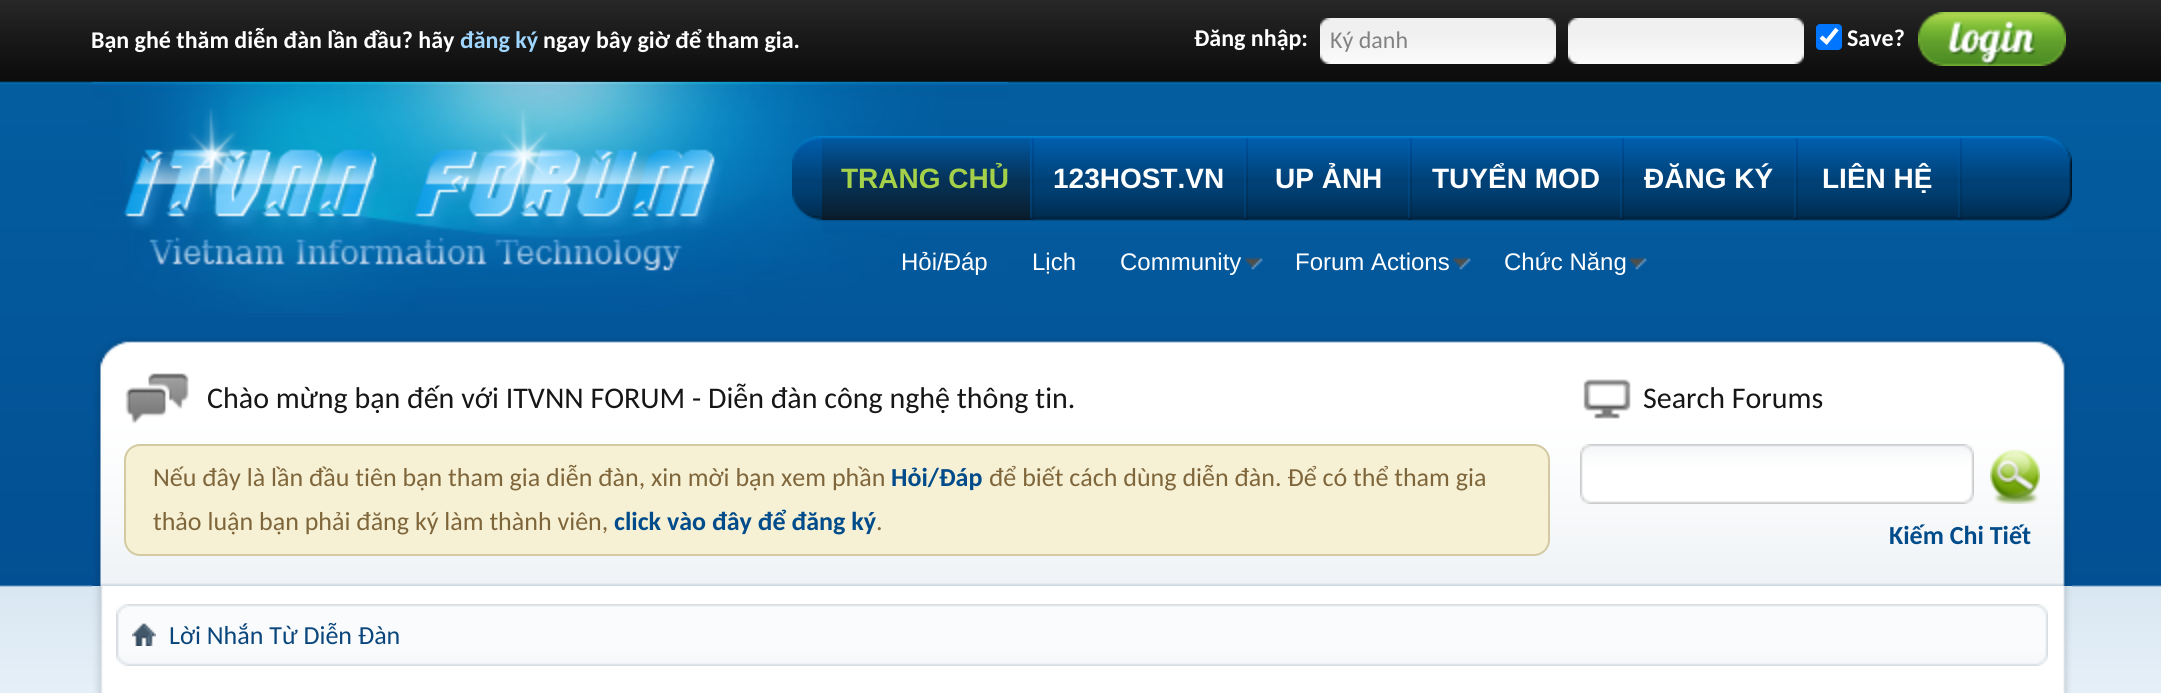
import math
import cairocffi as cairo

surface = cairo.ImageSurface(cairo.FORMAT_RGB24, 2161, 693)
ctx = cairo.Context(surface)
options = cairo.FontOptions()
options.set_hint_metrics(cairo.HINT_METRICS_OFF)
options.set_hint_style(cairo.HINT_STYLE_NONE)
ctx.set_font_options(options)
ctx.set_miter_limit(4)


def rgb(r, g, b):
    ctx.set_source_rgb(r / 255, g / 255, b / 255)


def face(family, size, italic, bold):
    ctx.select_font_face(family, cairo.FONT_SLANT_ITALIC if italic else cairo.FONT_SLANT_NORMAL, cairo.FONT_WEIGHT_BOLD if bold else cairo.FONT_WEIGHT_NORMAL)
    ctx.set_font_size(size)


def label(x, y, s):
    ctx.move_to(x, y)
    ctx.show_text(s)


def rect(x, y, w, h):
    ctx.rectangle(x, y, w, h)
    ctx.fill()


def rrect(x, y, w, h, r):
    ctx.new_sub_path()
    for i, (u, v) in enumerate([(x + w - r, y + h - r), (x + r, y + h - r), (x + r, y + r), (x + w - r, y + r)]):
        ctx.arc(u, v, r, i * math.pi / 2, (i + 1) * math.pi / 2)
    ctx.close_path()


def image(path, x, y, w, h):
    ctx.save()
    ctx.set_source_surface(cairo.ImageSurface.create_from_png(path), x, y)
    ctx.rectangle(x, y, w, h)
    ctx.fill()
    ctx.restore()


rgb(255, 255, 255)
ctx.paint()
image('image0.png', 0, 0, 2161, 693)
face('Carlito', 24, 0, 1)
rgb(255, 255, 255)
label(91, 48, 'Bạn ghé thăm diễn đàn lần đầu? hãy')
rgb(159, 214, 255)
label(460, 48, 'đăng ký')
rgb(255, 255, 255)
label(543, 48, 'ngay bây giờ để tham gia.')
label(1194, 46, 'Đăng nhập:')
image('image1.png', 1320, 18, 236, 46)
face('Carlito', 24, 0, 0)
rgb(130, 130, 130)
label(1330, 48, 'Ký danh')
image('image1.png', 1568, 18, 236, 46)
rgb(0, 117, 255)
rrect(1816, 24, 26, 26, 4)
ctx.fill()
ctx.new_path()
ctx.move_to(1821, 37)
ctx.line_to(1826.5, 42)
ctx.line_to(1837, 29)
rgb(255, 255, 255)
ctx.set_line_width(4.2)
ctx.stroke()
face('Carlito', 24, 0, 1)
label(1847, 46, 'Save?')
image('image2.png', 1918, 12, 148, 54)
image('image3.png', 92, 82, 916, 231)
image('image4.png', 123, 108, 599, 163)
image('image5.png', 823, 136, 1249, 98)
image('image6.png', 792, 136, 31, 98)
image('image7.png', 2042, 136, 30, 85)
image('image8.png', 1030, 138, 4, 82)
image('image9.png', 822, 136, 208, 84)
face('Liberation Sans', 28, 0, 1)
rgb(165, 209, 74)
label(841, 188, 'TRANG CHỦ')
image('image8.png', 1244, 138, 4, 82)
rgb(255, 255, 255)
label(1053, 188, '123HOST.VN')
image('image8.png', 1408, 138, 4, 82)
label(1275, 188, 'UP ẢNH')
image('image8.png', 1620, 138, 4, 82)
label(1432, 188, 'TUYỂN MOD')
image('image8.png', 1794, 138, 4, 82)
label(1644, 188, 'ĐĂNG KÝ')
image('image8.png', 1958, 138, 4, 82)
label(1822, 188, 'LIÊN HỆ')
face('Liberation Sans', 24, 0, 0)
label(901, 270, 'Hỏi/Ðáp')
label(1032, 270, 'Lịch')
label(1120, 270, 'Community')
image('image10.png', 1244, 256, 19, 14)
label(1295, 270, 'Forum Actions')
image('image10.png', 1452, 256, 19, 14)
label(1504, 270, 'Chức Năng')
image('image10.png', 1628, 256, 19, 14)
image('image11.png', 130, 337, 1906, 249)
image('image12.png', 92, 337, 38, 249)
image('image13.png', 2036, 337, 36, 249)
image('image14.png', 125, 373, 64, 51)
face('Carlito', 30, 0, 0)
rgb(22, 22, 22)
label(207, 408, 'Chào mừng bạn đến với ITVNN FORUM - Diễn đàn công nghệ thông tin.')
rgb(246, 240, 213)
rrect(125, 445, 1424, 110, 15)
ctx.fill_preserve()
rgb(211, 202, 163)
ctx.set_line_width(2)
ctx.stroke()
face('Carlito', 26, 0, 0)
rgb(127, 102, 58)
label(153, 486, 'Nếu đây là lần đầu tiên bạn tham gia diễn đàn, xin mời bạn xem phần')
face('Carlito', 26, 0, 1)
rgb(0, 75, 137)
label(891, 486, 'Hỏi/Ðáp')
face('Carlito', 26, 0, 0)
rgb(127, 102, 58)
label(989, 486, 'để biết cách dùng diễn đàn. Để có thể tham gia')
label(153, 530, 'thảo luận bạn phải đăng ký làm thành viên,')
face('Carlito', 26, 0, 1)
rgb(0, 75, 137)
label(614, 530, 'click vào đây để đăng ký')
face('Carlito', 26, 0, 0)
rgb(127, 102, 58)
label(876, 530, '.')
image('image15.png', 1583, 379, 48, 40)
face('Carlito', 30, 0, 0)
rgb(22, 22, 22)
label(1643, 408, 'Search Forums')
image('image16.png', 1580, 444, 394, 60)
image('image17.png', 1990, 449, 50, 55)
face('Carlito', 26, 0, 1)
rgb(0, 75, 137)
label(1889, 544, 'Kiếm Chi Tiết')
rgb(255, 255, 255)
rect(104, 586, 1959, 107)
image('image18.png', 2063, 586, 1, 107)
image('image19.png', 92, 586, 12, 107)
image('image20.png', 2064, 586, 8, 107)
image('image21.png', 128, 604, 1909, 62)
image('image22.png', 116, 604, 12, 62)
image('image23.png', 2037, 604, 11, 62)
image('image24.png', 132, 623, 24, 23)
face('Carlito', 26, 0, 0)
rgb(10, 70, 124)
label(169, 644, 'Lời Nhắn Từ Diễn Ðàn')
surface.write_to_png('render.png')
